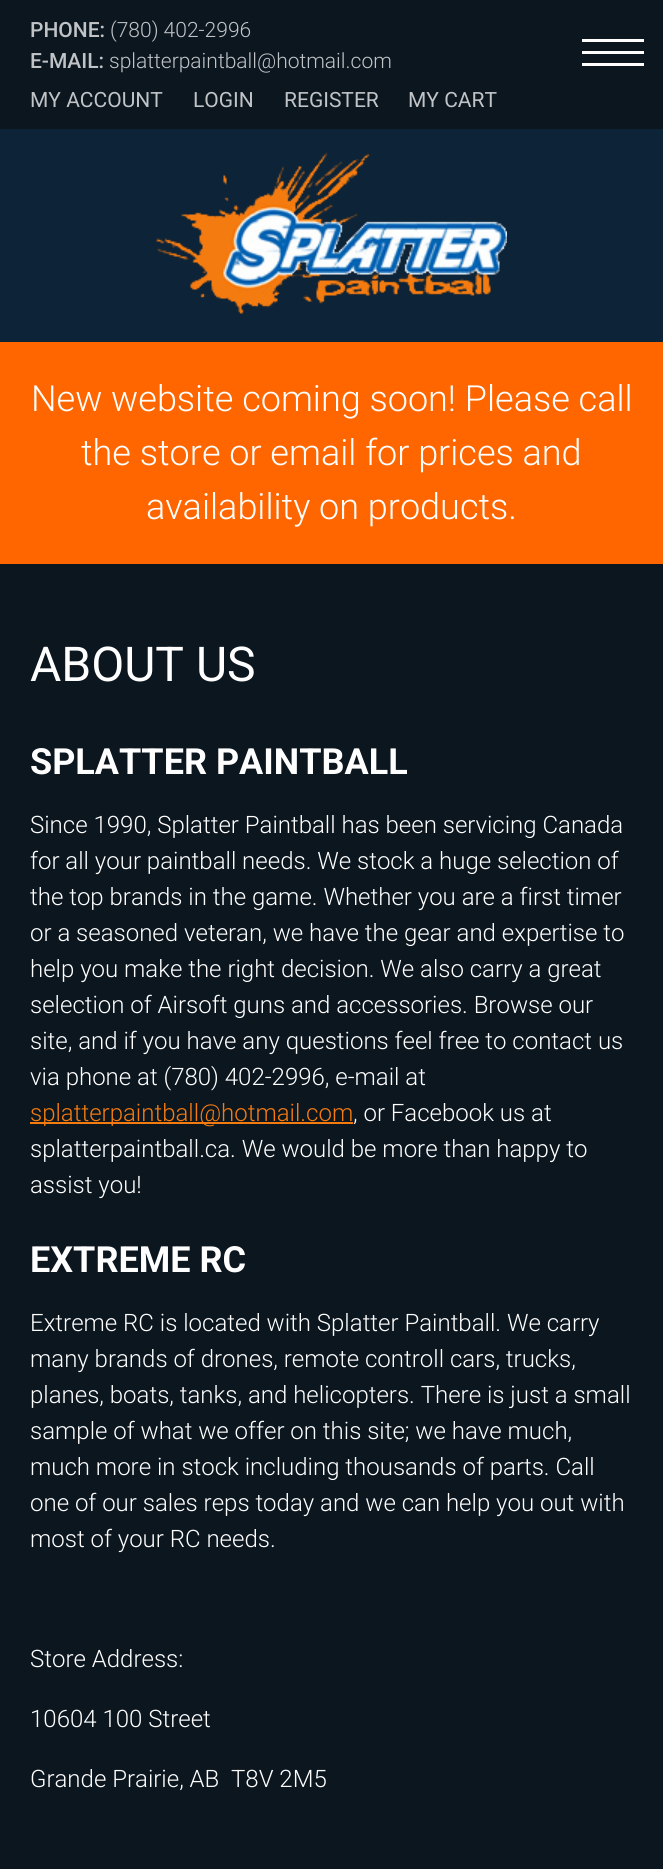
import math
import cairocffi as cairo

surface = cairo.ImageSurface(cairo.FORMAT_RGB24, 663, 1869)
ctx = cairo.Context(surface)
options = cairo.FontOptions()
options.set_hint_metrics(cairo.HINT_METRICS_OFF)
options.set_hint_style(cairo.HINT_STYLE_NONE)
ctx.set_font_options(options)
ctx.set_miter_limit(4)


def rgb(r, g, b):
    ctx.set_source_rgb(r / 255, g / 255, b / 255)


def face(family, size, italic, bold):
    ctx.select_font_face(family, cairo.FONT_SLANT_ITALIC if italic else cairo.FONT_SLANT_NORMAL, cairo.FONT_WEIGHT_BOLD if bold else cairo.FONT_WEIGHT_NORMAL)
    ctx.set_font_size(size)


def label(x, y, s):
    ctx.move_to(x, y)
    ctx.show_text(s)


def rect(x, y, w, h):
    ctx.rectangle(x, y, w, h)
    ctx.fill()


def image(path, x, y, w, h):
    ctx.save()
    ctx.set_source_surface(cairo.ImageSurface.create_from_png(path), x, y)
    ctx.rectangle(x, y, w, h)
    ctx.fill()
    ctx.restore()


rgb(12, 22, 31)
ctx.paint()
face('Roboto Medium', 21, 0, 0)
rgb(193, 196, 199)
label(30, 37, 'PHONE:')
face('Roboto Light', 21, 0, 0)
label(110, 37, '(780) 402-2996')
face('Roboto Medium', 21, 0, 0)
label(30, 68, 'E-MAIL:')
face('Roboto Light', 21, 0, 0)
label(109, 68, 'splatterpaintball@hotmail.com')
face('Roboto', 21, 0, 0)
label(30, 107, 'MY ACCOUNT')
label(193, 107, 'LOGIN')
label(284, 107, 'REGISTER')
label(408, 107, 'MY CART')
rgb(255, 255, 255)
rect(582, 51, 62, 3)
rect(582, 39, 62, 3)
rect(582, 63, 62, 3)
rgb(13, 35, 55)
rect(0, 129, 663, 213)
image('image0.png', 156, 152, 351, 162)
rgb(255, 102, 0)
rect(0, 342, 663, 222)
face('Roboto Light', 36, 0, 0)
rgb(255, 255, 255)
label(31, 411, 'New website coming soon! Please call')
label(81, 465, 'the store or email for prices and')
label(146, 519, 'availability on products.')
face('Roboto', 48, 0, 0)
label(30, 681, 'ABOUT US')
face('Roboto', 36, 0, 1)
label(30, 774, 'SPLATTER PAINTBALL')
face('Roboto Light', 24, 0, 0)
label(30, 833, 'Since 1990, Splatter Paintball has been servicing Canada')
label(30, 869, 'for all your paintball needs. We stock a huge selection of')
label(30, 905, 'the top brands in the game. Whether you are a first timer')
label(30, 941, 'or a seasoned veteran, we have the gear and expertise to')
label(30, 977, 'help you make the right decision. We also carry a great')
label(30, 1013, 'selection of Airsoft guns and accessories. Browse our')
label(30, 1049, 'site, and if you have any questions feel free to contact us')
label(30, 1085, 'via phone at (780) 402-2996, e-mail at')
rgb(244, 123, 16)
rect(30, 1122, 323, 2)
label(30, 1121, 'splatterpaintball@hotmail.com')
rgb(255, 255, 255)
label(353, 1121, ', or Facebook us at')
label(30, 1157, 'splatterpaintball.ca. We would be more than happy to')
label(30, 1193, 'assist you!')
face('Roboto', 36, 0, 1)
label(30, 1272, 'EXTREME RC')
face('Roboto Light', 24, 0, 0)
label(30, 1331, 'Extreme RC is located with Splatter Paintball. We carry')
label(30, 1367, 'many brands of drones, remote controll cars, trucks,')
label(30, 1403, 'planes, boats, tanks, and helicopters. There is just a small')
label(30, 1439, 'sample of what we offer on this site; we have much,')
label(30, 1475, 'much more in stock including thousands of parts. Call')
label(30, 1511, 'one of our sales reps today and we can help you out with')
label(30, 1547, 'most of your RC needs.')
label(30, 1667, 'Store Address:')
label(30, 1727, '10604 100 Street')
label(30, 1787, 'Grande Prairie, AB  T8V 2M5')
surface.write_to_png('render.png')
